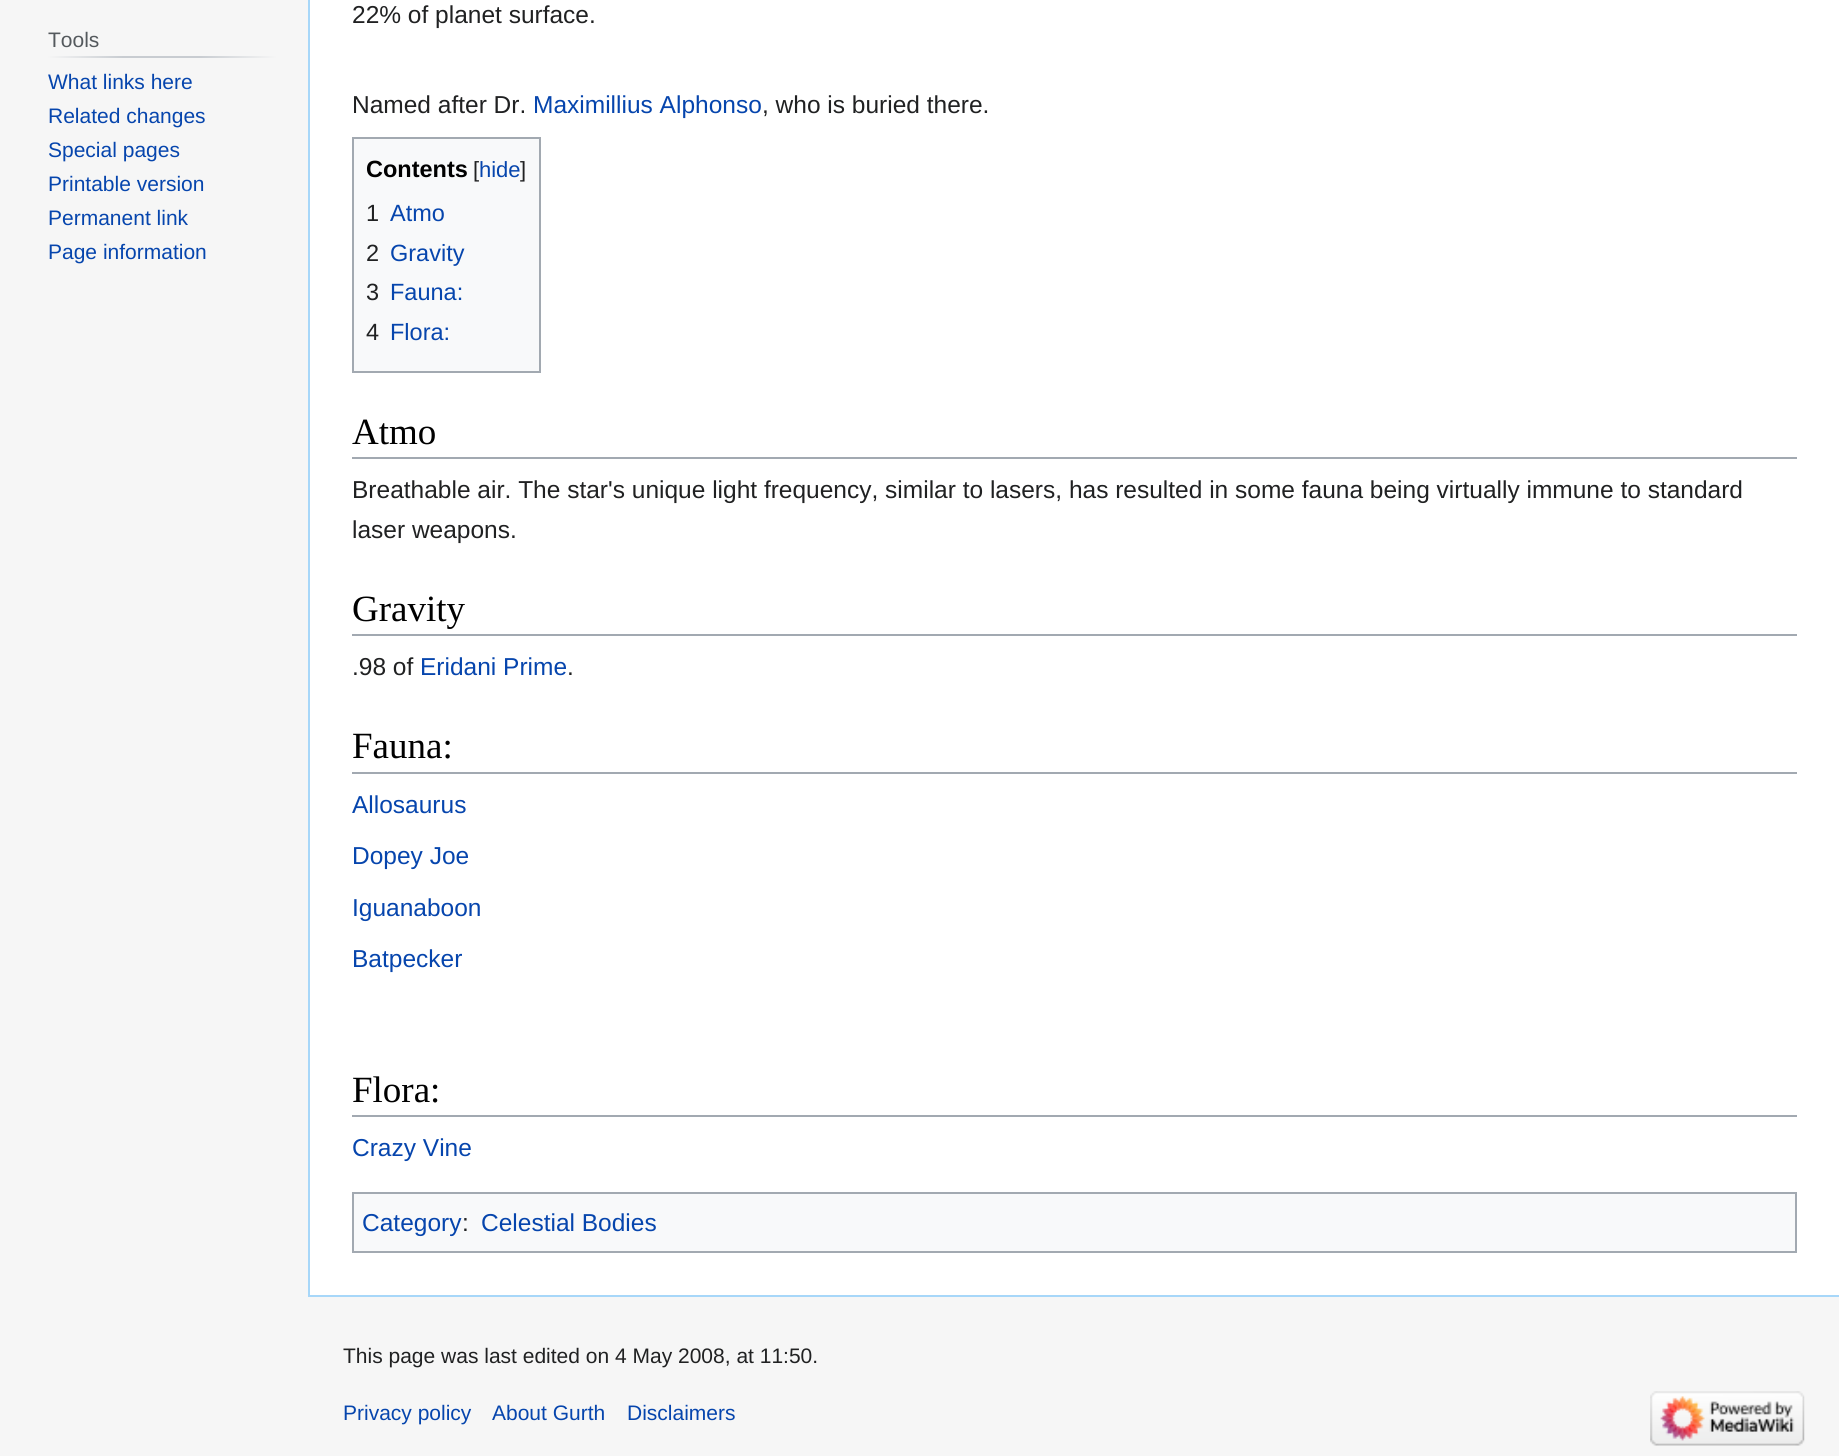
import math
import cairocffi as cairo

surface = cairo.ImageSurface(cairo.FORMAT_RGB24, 1839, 1456)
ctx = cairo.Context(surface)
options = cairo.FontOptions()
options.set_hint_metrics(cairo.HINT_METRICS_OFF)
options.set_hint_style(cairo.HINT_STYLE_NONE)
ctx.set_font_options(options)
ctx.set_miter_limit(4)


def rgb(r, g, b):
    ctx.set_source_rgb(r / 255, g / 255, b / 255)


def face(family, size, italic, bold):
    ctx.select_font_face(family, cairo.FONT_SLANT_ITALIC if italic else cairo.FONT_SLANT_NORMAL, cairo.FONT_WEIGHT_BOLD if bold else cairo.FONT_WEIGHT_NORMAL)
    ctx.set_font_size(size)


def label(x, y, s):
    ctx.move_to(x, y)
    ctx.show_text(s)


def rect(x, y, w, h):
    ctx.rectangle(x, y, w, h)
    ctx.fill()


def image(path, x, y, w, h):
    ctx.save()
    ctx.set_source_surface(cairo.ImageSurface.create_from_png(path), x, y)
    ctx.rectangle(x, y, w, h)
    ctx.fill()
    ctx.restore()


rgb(246, 246, 246)
ctx.paint()
gradient = cairo.LinearGradient(47, 57, 277, 57)
gradient.add_color_stop_rgba(0, 0.965, 0.965, 0.965, 1)
gradient.add_color_stop_rgba(0.33, 0.784, 0.8, 0.82, 1)
gradient.add_color_stop_rgba(0.66, 0.784, 0.8, 0.82, 1)
gradient.add_color_stop_rgba(1, 0.965, 0.965, 0.965, 1)
ctx.set_source(gradient)
rect(47, 56, 230, 2)
face('Liberation Sans', 21, 0, 0)
rgb(84, 89, 93)
label(48, 47, 'Tools')
rgb(6, 69, 173)
label(48, 89, 'What links here')
label(48, 123, 'Related changes')
label(48, 157, 'Special pages')
label(48, 191, 'Printable version')
label(48, 225, 'Permanent link')
label(48, 259, 'Page information')
rgb(255, 255, 255)
rect(310, 0, 1529, 1295)
rgb(167, 215, 249)
rect(308, 1295, 1531, 2)
rect(308, 0, 2, 1297)
face('Liberation Sans', 24.5, 0, 0)
rgb(32, 33, 34)
label(352, 23, '22% of planet surface.')
label(352, 113, 'Named after Dr.')
rgb(6, 69, 173)
label(533, 113, 'Maximillius Alphonso')
rgb(32, 33, 34)
label(762, 113, ', who is buried there.')
rgb(248, 249, 250)
ctx.rectangle(353, 138, 187, 234)
ctx.fill_preserve()
rgb(162, 169, 177)
ctx.stroke()
face('Liberation Sans', 23.5, 0, 1)
rgb(0, 0, 0)
label(366, 177, 'Contents')
face('Liberation Sans', 22, 0, 0)
rgb(32, 33, 34)
label(473, 177, '[')
rgb(6, 69, 173)
label(479, 177, 'hide')
rgb(32, 33, 34)
label(520, 177, ']')
face('Liberation Sans', 23.5, 0, 0)
label(366, 221, '1')
rgb(6, 69, 173)
label(390, 221, 'Atmo')
rgb(32, 33, 34)
label(366, 261, '2')
rgb(6, 69, 173)
label(390, 261, 'Gravity')
rgb(32, 33, 34)
label(366, 300, '3')
rgb(6, 69, 173)
label(390, 300, 'Fauna:')
rgb(32, 33, 34)
label(366, 340, '4')
rgb(6, 69, 173)
label(390, 340, 'Flora:')
rgb(162, 169, 177)
rect(352, 457, 1445, 2)
face('Liberation Serif', 37, 0, 0)
rgb(0, 0, 0)
label(352, 444, 'Atmo')
face('Liberation Sans', 24.5, 0, 0)
rgb(32, 33, 34)
label(352, 498, 'Breathable air. The star\'s unique light frequency, similar to lasers, has resulted in some fauna being virtually immune to standard')
label(352, 538, 'laser weapons.')
rgb(162, 169, 177)
rect(352, 634, 1445, 2)
face('Liberation Serif', 37, 0, 0)
rgb(0, 0, 0)
label(352, 621, 'Gravity')
face('Liberation Sans', 24.5, 0, 0)
rgb(32, 33, 34)
label(352, 675, '.98 of')
rgb(6, 69, 173)
label(420, 675, 'Eridani Prime')
rgb(32, 33, 34)
label(567, 675, '.')
rgb(162, 169, 177)
rect(352, 772, 1445, 2)
face('Liberation Serif', 37, 0, 0)
rgb(0, 0, 0)
label(352, 758, 'Fauna:')
face('Liberation Sans', 24.5, 0, 0)
rgb(6, 69, 173)
label(352, 813, 'Allosaurus')
label(352, 864, 'Dopey Joe')
label(352, 916, 'Iguanaboon')
label(352, 967, 'Batpecker')
rgb(162, 169, 177)
rect(352, 1115, 1445, 2)
face('Liberation Serif', 37, 0, 0)
rgb(0, 0, 0)
label(352, 1102, 'Flora:')
face('Liberation Sans', 24.5, 0, 0)
rgb(6, 69, 173)
label(352, 1156, 'Crazy Vine')
rgb(248, 249, 250)
ctx.rectangle(353, 1193, 1443, 59)
ctx.fill_preserve()
rgb(162, 169, 177)
ctx.stroke()
rgb(6, 69, 173)
label(362, 1231, 'Category')
rgb(32, 33, 34)
label(462, 1231, ':')
rgb(6, 69, 173)
label(481, 1231, 'Celestial Bodies')
face('Liberation Sans', 21, 0, 0)
rgb(32, 33, 34)
label(343, 1363, 'This page was last edited on 4 May 2008, at 11:50.')
rgb(6, 69, 173)
label(343, 1420, 'Privacy policy')
label(492, 1420, 'About Gurth')
label(627, 1420, 'Disclaimers')
image('image0.png', 1650, 1391, 155, 55)
surface.write_to_png('render.png')
